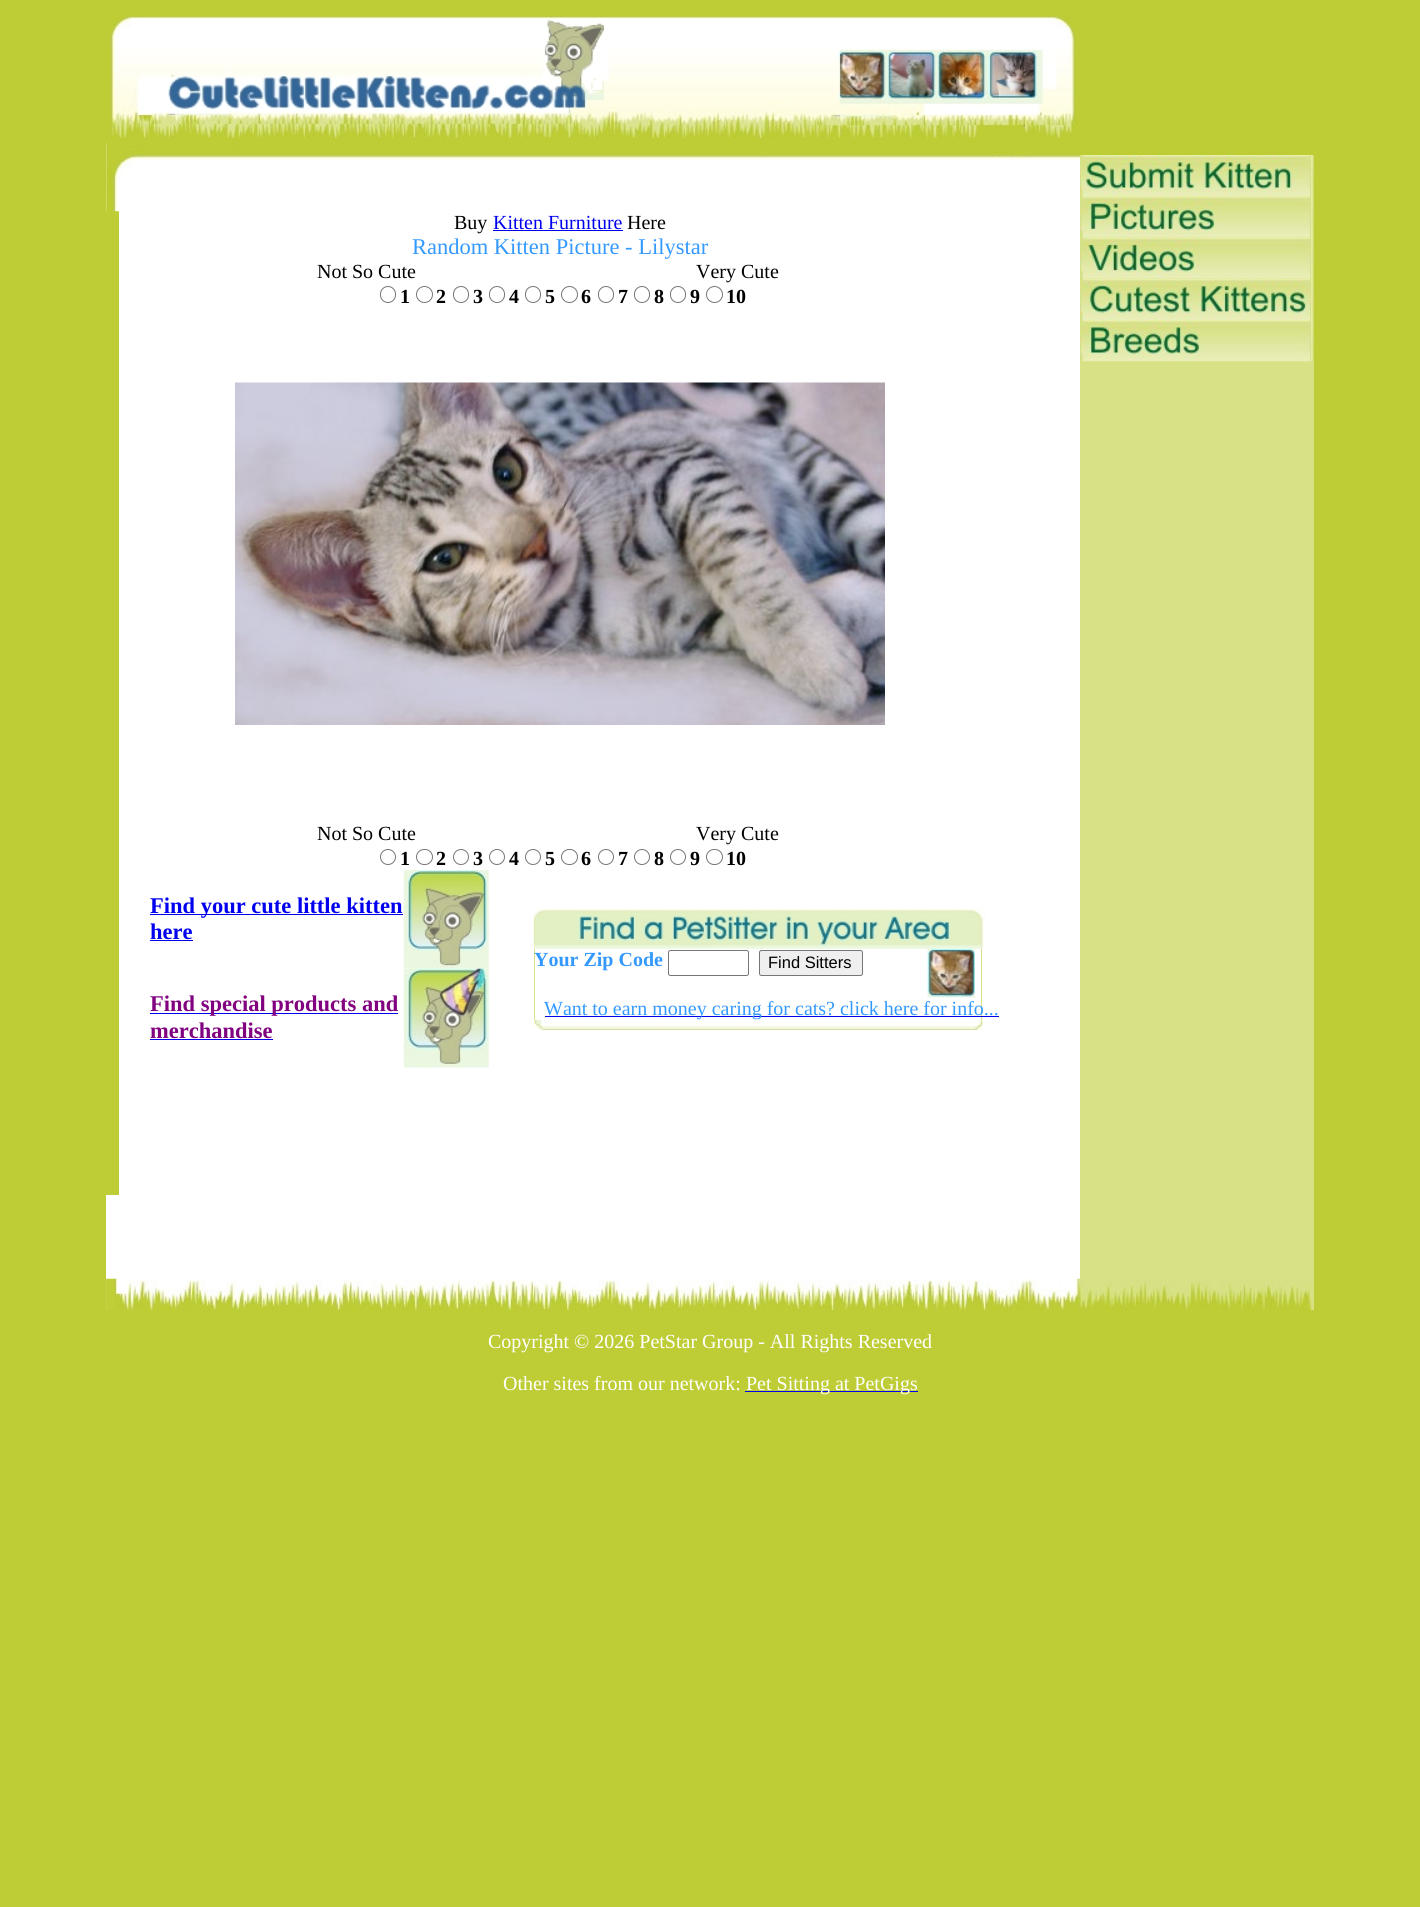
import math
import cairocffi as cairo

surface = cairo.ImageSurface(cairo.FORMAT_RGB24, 1420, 1907)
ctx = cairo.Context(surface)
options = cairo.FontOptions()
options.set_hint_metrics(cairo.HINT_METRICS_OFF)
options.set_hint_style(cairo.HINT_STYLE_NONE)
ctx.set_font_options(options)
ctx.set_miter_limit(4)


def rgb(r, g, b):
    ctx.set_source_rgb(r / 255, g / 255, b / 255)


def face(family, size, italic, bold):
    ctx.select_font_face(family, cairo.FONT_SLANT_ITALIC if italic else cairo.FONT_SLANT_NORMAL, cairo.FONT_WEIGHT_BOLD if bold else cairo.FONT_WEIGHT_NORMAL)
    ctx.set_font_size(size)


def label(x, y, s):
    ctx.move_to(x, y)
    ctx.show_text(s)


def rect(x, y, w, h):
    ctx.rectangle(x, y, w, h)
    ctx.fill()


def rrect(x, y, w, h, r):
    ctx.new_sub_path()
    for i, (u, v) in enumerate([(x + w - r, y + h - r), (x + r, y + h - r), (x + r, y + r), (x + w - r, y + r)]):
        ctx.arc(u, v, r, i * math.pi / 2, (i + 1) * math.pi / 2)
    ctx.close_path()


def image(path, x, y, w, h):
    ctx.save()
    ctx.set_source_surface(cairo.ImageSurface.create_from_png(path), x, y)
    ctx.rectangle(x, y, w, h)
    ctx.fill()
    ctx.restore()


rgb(190, 205, 54)
ctx.paint()
rgb(255, 255, 255)
rect(106, 143, 974, 1136)
image('image0.png', 110, 16, 968, 123)
rgb(190, 205, 54)
rect(106, 211, 13, 984)
image('image1.png', 106, 143, 974, 69)
face('Liberation Serif', 20, 0, 0)
rgb(0, 0, 0)
label(454, 229, 'Buy')
rgb(0, 0, 238)
label(493, 229, 'Kitten Furniture')
rect(493, 230, 130, 1)
rgb(0, 0, 0)
label(627, 229, 'Here')
face('Liberation Serif', 22.5, 0, 0)
rgb(51, 153, 255)
label(412, 254, 'Random Kitten Picture - Lilystar')
face('Liberation Serif', 20, 0, 0)
rgb(0, 0, 0)
label(317, 278, 'Not So Cute')
label(696, 278, 'Very Cute')
rrect(380.5, 286.5, 15, 16, 7.5)
rgb(118, 118, 118)
ctx.set_line_width(1)
ctx.stroke()
face('Liberation Serif', 20, 0, 1)
rgb(0, 0, 0)
label(400, 303, '1')
ctx.new_path()
ctx.arc(424.5, 294.5, 8, 0, 2 * math.pi)
rgb(118, 118, 118)
ctx.stroke()
rgb(0, 0, 0)
label(436, 303, '2')
rrect(453.5, 286.5, 15, 16, 7.5)
rgb(118, 118, 118)
ctx.stroke()
rgb(0, 0, 0)
label(473, 303, '3')
rrect(489.5, 286.5, 15, 16, 7.5)
rgb(118, 118, 118)
ctx.stroke()
rgb(0, 0, 0)
label(509, 303, '4')
rrect(525.5, 286.5, 15, 16, 7.5)
rgb(118, 118, 118)
ctx.stroke()
rgb(0, 0, 0)
label(545, 303, '5')
ctx.new_path()
ctx.arc(569.5, 294.5, 8, 0, 2 * math.pi)
rgb(118, 118, 118)
ctx.stroke()
rgb(0, 0, 0)
label(581, 303, '6')
rrect(598.5, 286.5, 15, 16, 7.5)
rgb(118, 118, 118)
ctx.stroke()
rgb(0, 0, 0)
label(618, 303, '7')
rrect(634.5, 286.5, 15, 16, 7.5)
rgb(118, 118, 118)
ctx.stroke()
rgb(0, 0, 0)
label(654, 303, '8')
rrect(670.5, 286.5, 15, 16, 7.5)
rgb(118, 118, 118)
ctx.stroke()
rgb(0, 0, 0)
label(690, 303, '9')
ctx.new_path()
ctx.arc(714.5, 294.5, 8, 0, 2 * math.pi)
rgb(118, 118, 118)
ctx.stroke()
rgb(0, 0, 0)
label(726, 303, '10')
image('image2.png', 235, 382, 650, 343)
face('Liberation Serif', 20, 0, 0)
label(317, 840, 'Not So Cute')
label(696, 840, 'Very Cute')
ctx.new_path()
ctx.arc(388, 857, 7.5, 0, 2 * math.pi)
rgb(118, 118, 118)
ctx.stroke()
face('Liberation Serif', 20, 0, 1)
rgb(0, 0, 0)
label(400, 865, '1')
rrect(416.5, 849.5, 16, 15, 7.5)
rgb(118, 118, 118)
ctx.stroke()
rgb(0, 0, 0)
label(436, 865, '2')
ctx.new_path()
ctx.arc(461, 857, 7.5, 0, 2 * math.pi)
rgb(118, 118, 118)
ctx.stroke()
rgb(0, 0, 0)
label(473, 865, '3')
ctx.new_path()
ctx.arc(497, 857, 7.5, 0, 2 * math.pi)
rgb(118, 118, 118)
ctx.stroke()
rgb(0, 0, 0)
label(509, 865, '4')
ctx.new_path()
ctx.arc(533, 857, 7.5, 0, 2 * math.pi)
rgb(118, 118, 118)
ctx.stroke()
rgb(0, 0, 0)
label(545, 865, '5')
rrect(561.5, 849.5, 16, 15, 7.5)
rgb(118, 118, 118)
ctx.stroke()
rgb(0, 0, 0)
label(581, 865, '6')
ctx.new_path()
ctx.arc(606, 857, 7.5, 0, 2 * math.pi)
rgb(118, 118, 118)
ctx.stroke()
rgb(0, 0, 0)
label(618, 865, '7')
ctx.new_path()
ctx.arc(642, 857, 7.5, 0, 2 * math.pi)
rgb(118, 118, 118)
ctx.stroke()
rgb(0, 0, 0)
label(654, 865, '8')
ctx.new_path()
ctx.arc(678, 857, 7.5, 0, 2 * math.pi)
rgb(118, 118, 118)
ctx.stroke()
rgb(0, 0, 0)
label(690, 865, '9')
rrect(706.5, 849.5, 16, 15, 7.5)
rgb(118, 118, 118)
ctx.stroke()
rgb(0, 0, 0)
label(726, 865, '10')
rgb(0, 0, 238)
rect(150, 914, 253, 1)
face('Liberation Serif', 22.5, 0, 1)
label(150, 913, 'Find your cute little kitten')
label(150, 939, 'here')
rect(150, 940, 43, 1)
image('image3.png', 403, 870, 86, 99)
rect(150, 1013, 248, 1)
rgb(128, 0, 128)
label(150, 1011, 'Find special products and')
label(150, 1038, 'merchandise')
rgb(0, 0, 238)
rect(150, 1039, 123, 1)
image('image4.png', 403, 968, 86, 100)
image('image5.png', 533, 908, 452, 41)
rgb(216, 225, 134)
rect(534, 949, 1, 71)
rect(981, 949, 1, 71)
face('Liberation Serif', 20, 0, 1)
rgb(51, 153, 255)
label(534, 966, 'Your Zip Code')
rrect(668.5, 950.5, 80, 25, 2)
rgb(118, 118, 118)
ctx.stroke()
rgb(239, 239, 239)
rrect(759.5, 950.5, 103, 25, 2)
ctx.fill_preserve()
rgb(118, 118, 118)
ctx.stroke()
face('Liberation Sans', 16.5, 0, 0)
rgb(0, 0, 0)
label(768, 968, 'Find Sitters')
image('image6.png', 927, 948, 48, 50)
rgb(0, 0, 238)
rect(545, 1016, 454, 1)
face('Liberation Serif', 20, 0, 0)
rgb(51, 153, 255)
label(544, 1015, 'Want to earn money caring for cats? click here for info...')
image('image7.png', 533, 1020, 450, 10)
rgb(216, 225, 134)
rect(1080, 155, 234, 1124)
image('image8.png', 1080, 155, 234, 42)
image('image9.png', 1080, 196, 234, 42)
image('image10.png', 1080, 237, 234, 42)
image('image11.png', 1080, 279, 234, 41)
image('image12.png', 1080, 320, 234, 42)
rect(106, 1279, 1208, 31)
image('image13.png', 106, 1278, 1206, 32)
rgb(255, 255, 255)
label(488, 1348, 'Copyright © 2026 PetStar Group - All Rights Reserved')
label(503, 1390, 'Other sites from our network:')
rgb(0, 0, 238)
rect(745, 1391, 173, 1)
rgb(255, 255, 255)
label(746, 1390, 'Pet Sitting at PetGigs')
surface.write_to_png('render.png')
